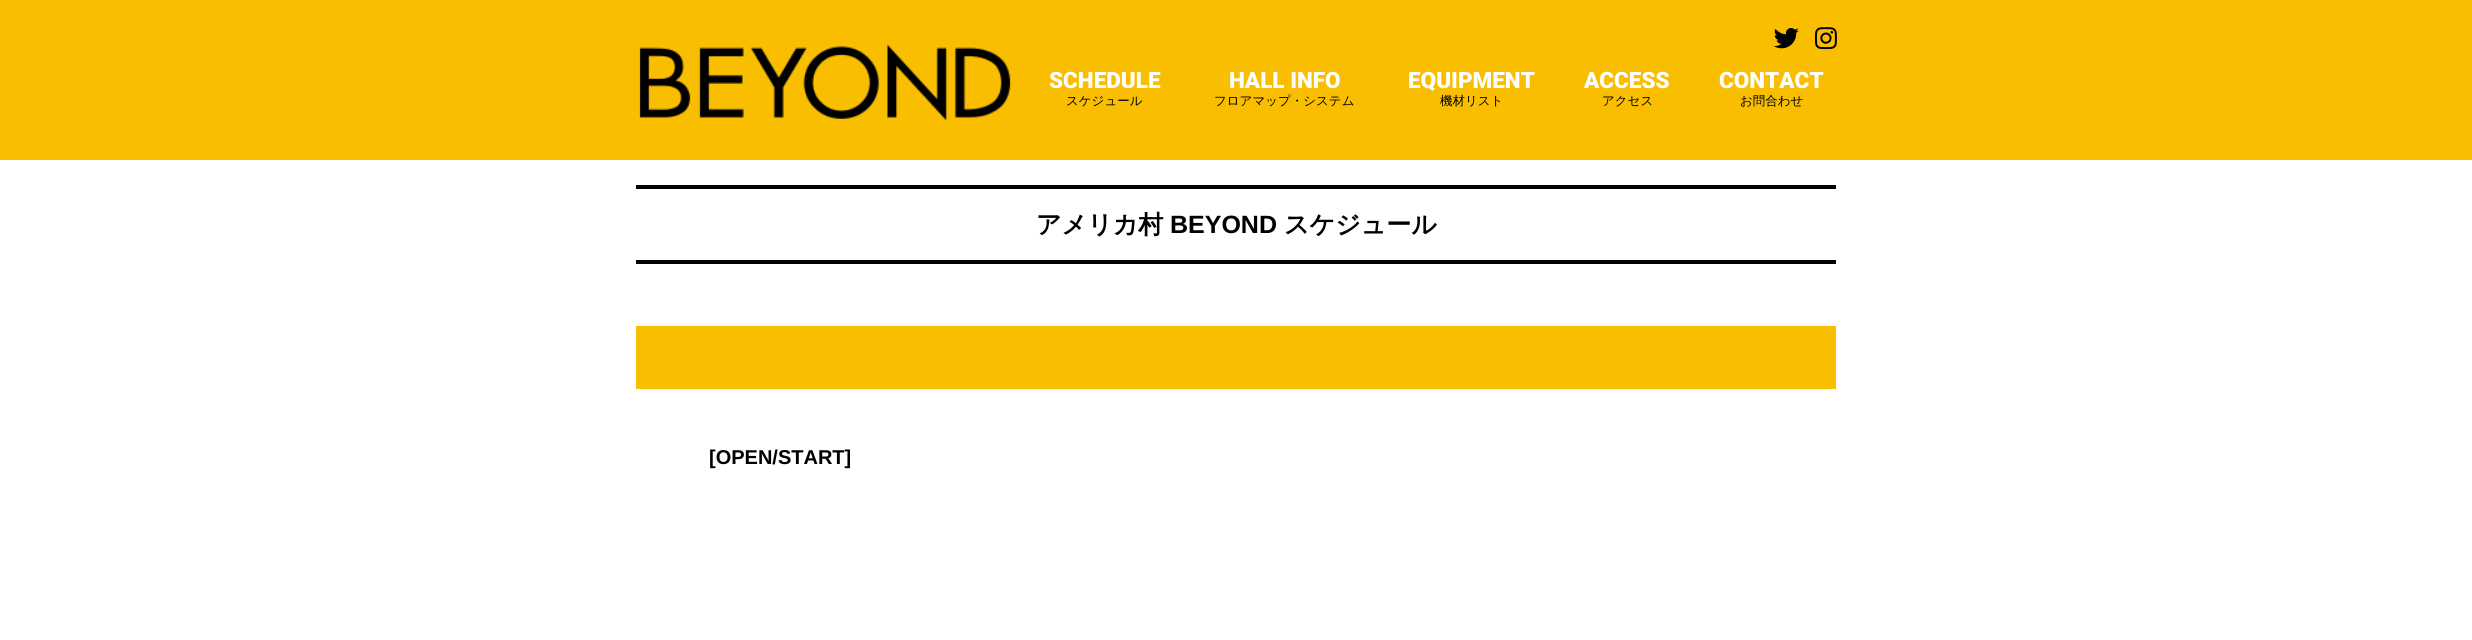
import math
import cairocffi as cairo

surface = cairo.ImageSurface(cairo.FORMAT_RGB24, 2472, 640)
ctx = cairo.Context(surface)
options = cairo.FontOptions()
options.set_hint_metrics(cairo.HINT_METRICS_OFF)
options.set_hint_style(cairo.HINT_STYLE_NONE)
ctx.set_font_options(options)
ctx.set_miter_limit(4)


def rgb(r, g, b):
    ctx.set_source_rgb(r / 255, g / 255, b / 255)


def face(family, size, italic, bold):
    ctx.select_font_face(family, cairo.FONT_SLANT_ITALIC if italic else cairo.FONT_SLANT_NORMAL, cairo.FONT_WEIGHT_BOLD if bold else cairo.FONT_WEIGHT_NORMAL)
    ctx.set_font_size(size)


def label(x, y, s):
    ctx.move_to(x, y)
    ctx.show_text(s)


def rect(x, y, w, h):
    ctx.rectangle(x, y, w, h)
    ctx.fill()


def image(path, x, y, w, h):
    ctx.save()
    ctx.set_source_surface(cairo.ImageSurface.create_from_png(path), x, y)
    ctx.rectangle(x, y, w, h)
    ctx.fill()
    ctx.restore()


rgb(255, 255, 255)
ctx.paint()
rgb(250, 190, 0)
rect(0, 0, 2472, 160)
image('image0.png', 639, 44, 372, 77)
image('image1.png', 1774, 28, 25, 21)
image('image2.png', 1815, 27, 22, 23)
face('Roboto Black', 22.5, 0, 0)
rgb(255, 255, 255)
label(1049, 88, 'SCHEDULE')
face('WenQuanYi Zen Hei Medium', 12.5, 0, 0)
rgb(0, 0, 0)
label(1066, 105, 'スケジュール')
face('Roboto Black', 22.5, 0, 0)
rgb(255, 255, 255)
label(1229, 88, 'HALL INFO')
face('WenQuanYi Zen Hei Medium', 12.5, 0, 0)
rgb(0, 0, 0)
label(1214, 105, 'フロアマップ・システム')
face('Roboto Black', 22.5, 0, 0)
rgb(255, 255, 255)
label(1408, 88, 'EQUIPMENT')
face('WenQuanYi Zen Hei Medium', 12.5, 0, 0)
rgb(0, 0, 0)
label(1440, 105, '機材リスト')
face('Roboto Black', 22.5, 0, 0)
rgb(255, 255, 255)
label(1584, 88, 'ACCESS')
face('WenQuanYi Zen Hei Medium', 12.5, 0, 0)
rgb(0, 0, 0)
label(1602, 105, 'アクセス')
face('Roboto Black', 22.5, 0, 0)
rgb(255, 255, 255)
label(1719, 88, 'CONTACT')
face('WenQuanYi Zen Hei Medium', 12.5, 0, 0)
rgb(0, 0, 0)
label(1740, 105, 'お問合わせ')
rect(636, 185, 1200, 4)
rect(636, 260, 1200, 4)
face('WenQuanYi Zen Hei', 25, 0, 1)
label(1036, 233, 'アメリカ村')
face('Liberation Sans', 25, 0, 1)
label(1170, 233, 'BEYOND')
face('WenQuanYi Zen Hei', 25, 0, 1)
label(1284, 233, 'スケジュール')
rgb(250, 190, 0)
rect(636, 326, 1200, 63)
face('Liberation Sans', 20, 0, 1)
rgb(0, 0, 0)
label(709, 464, '[OPEN/START]')
surface.write_to_png('render.png')
